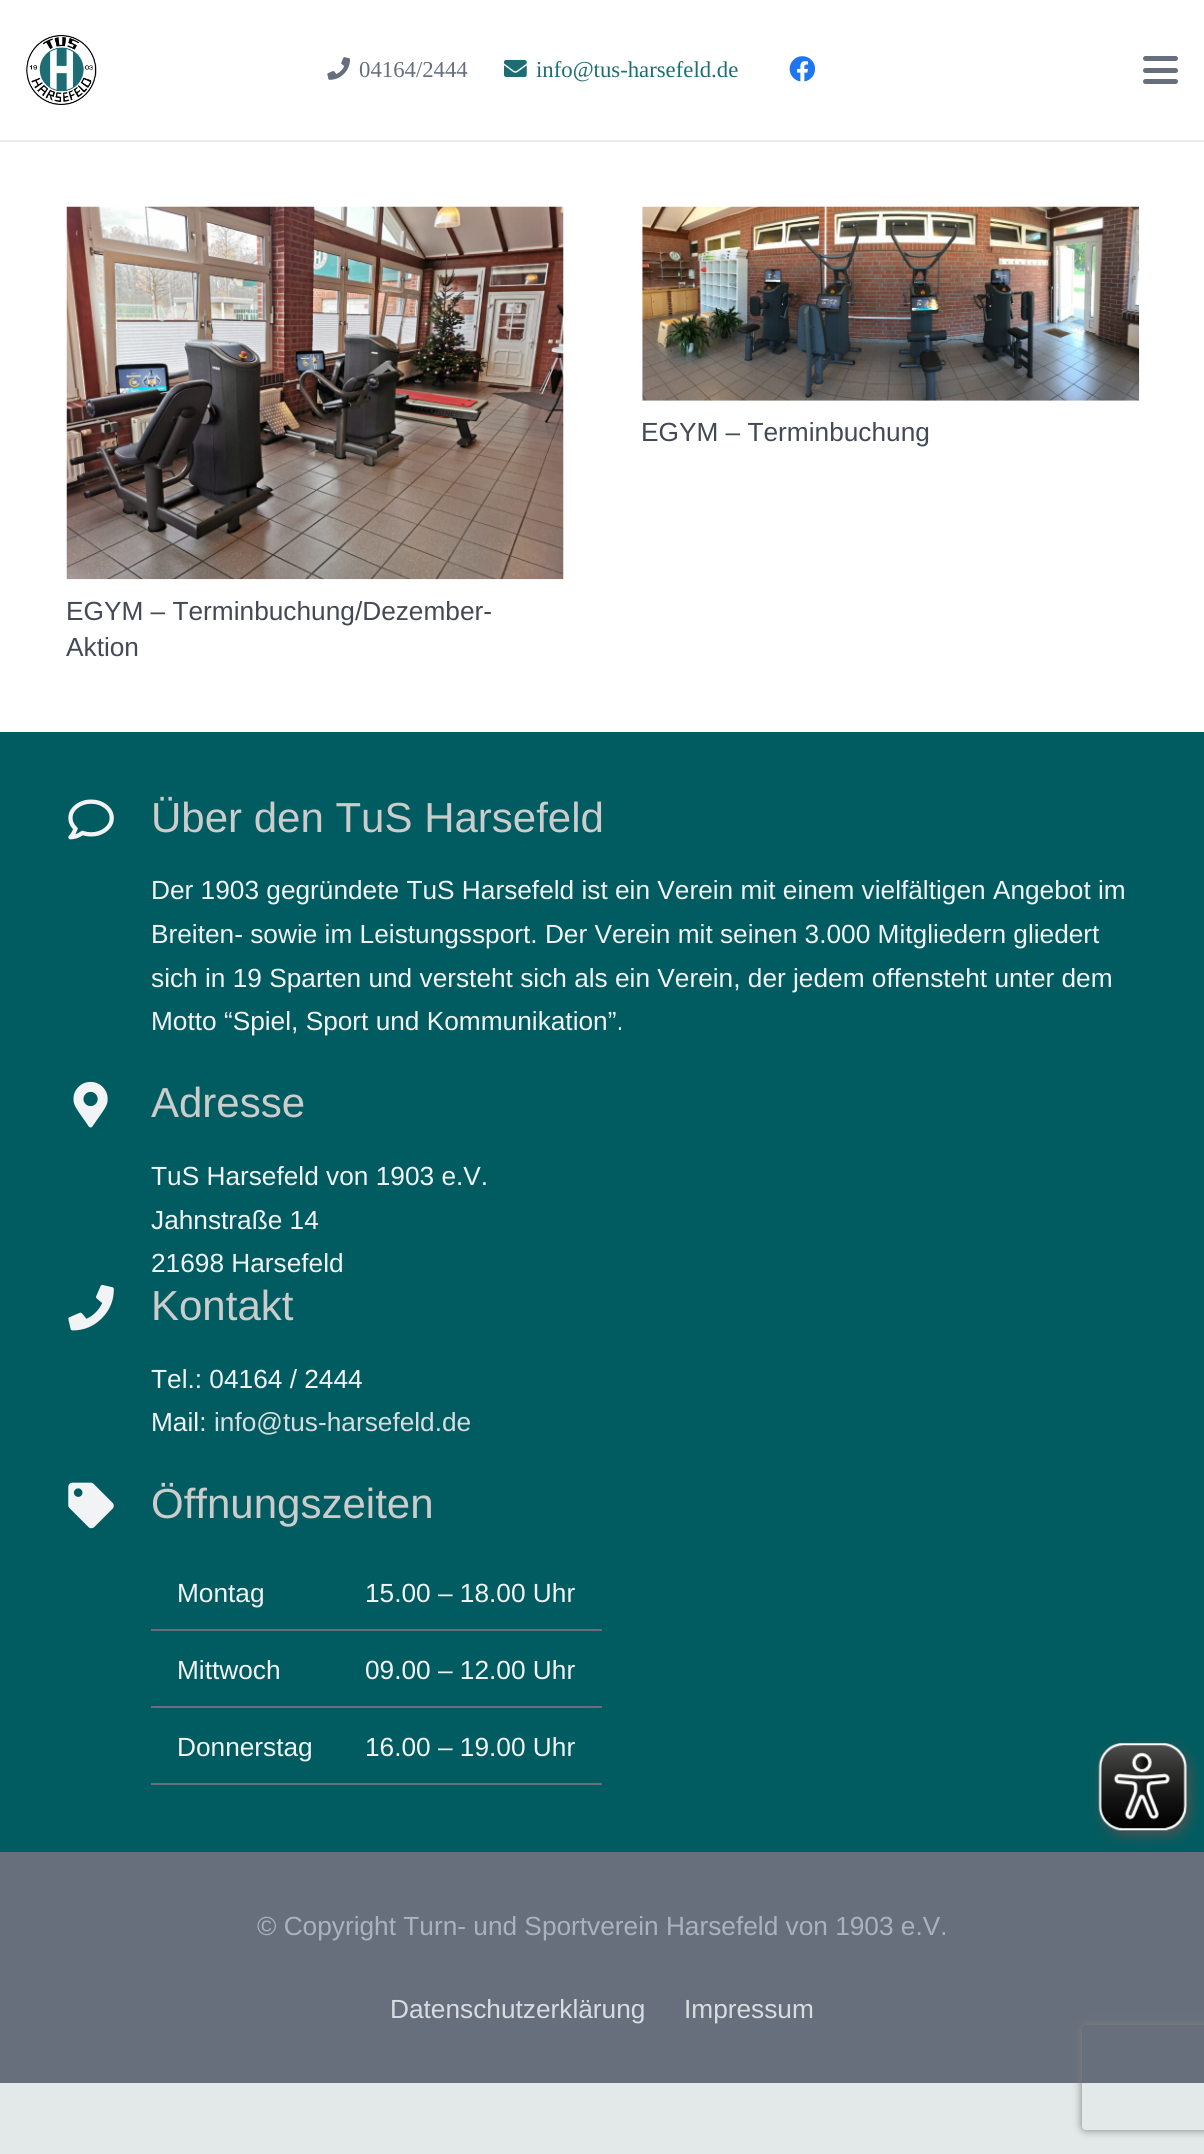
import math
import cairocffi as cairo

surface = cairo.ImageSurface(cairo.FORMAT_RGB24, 1204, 2154)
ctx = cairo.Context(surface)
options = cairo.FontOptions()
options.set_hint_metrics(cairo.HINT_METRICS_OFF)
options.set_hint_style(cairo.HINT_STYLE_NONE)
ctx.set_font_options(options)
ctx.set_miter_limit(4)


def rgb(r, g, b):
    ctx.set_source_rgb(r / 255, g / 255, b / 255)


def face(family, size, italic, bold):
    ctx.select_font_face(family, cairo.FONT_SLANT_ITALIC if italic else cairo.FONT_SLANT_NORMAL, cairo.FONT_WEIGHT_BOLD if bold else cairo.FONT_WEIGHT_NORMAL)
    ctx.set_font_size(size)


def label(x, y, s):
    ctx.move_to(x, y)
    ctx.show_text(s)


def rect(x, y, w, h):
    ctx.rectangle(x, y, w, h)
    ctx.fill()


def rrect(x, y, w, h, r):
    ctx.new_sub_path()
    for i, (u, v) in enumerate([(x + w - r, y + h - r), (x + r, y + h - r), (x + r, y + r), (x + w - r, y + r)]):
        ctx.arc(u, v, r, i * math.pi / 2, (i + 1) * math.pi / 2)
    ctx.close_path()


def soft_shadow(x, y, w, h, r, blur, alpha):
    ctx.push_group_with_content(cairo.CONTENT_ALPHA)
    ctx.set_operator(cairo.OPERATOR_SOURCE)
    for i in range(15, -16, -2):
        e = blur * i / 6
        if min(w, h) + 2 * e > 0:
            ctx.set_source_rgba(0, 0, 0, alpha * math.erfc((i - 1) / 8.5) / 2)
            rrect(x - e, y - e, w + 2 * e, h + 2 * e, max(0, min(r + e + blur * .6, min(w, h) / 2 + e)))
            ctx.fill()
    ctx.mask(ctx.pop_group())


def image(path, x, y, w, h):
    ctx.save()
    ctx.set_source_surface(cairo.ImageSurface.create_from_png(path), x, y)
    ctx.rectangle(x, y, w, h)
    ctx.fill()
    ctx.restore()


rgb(227, 232, 232)
ctx.paint()
rgb(255, 255, 255)
rect(0, 0, 1204, 732)
rgb(235, 235, 235)
rect(0, 140, 1204, 2)
image('image0.png', 26, 35, 71, 70)
image('image1.png', 327, 57, 23, 23)
face('Liberation Serif', 22.75, 0, 0)
rgb(103, 111, 124)
label(359, 77, '04164/2444')
image('image2.png', 504, 59, 23, 18)
rgb(31, 109, 116)
label(536, 77, 'info@tus-harsefeld.de')
image('image3.png', 789, 56, 27, 26)
rgb(103, 111, 124)
rrect(1143, 68, 35, 5, 2.5)
ctx.fill()
rrect(1143, 56, 35, 5, 2.5)
ctx.fill()
rrect(1143, 79, 35, 5, 2.5)
ctx.fill()
image('image4.png', 642, 206, 498, 195)
face('Liberation Sans', 26.25, 0, 0)
rgb(67, 73, 85)
label(641, 441, 'EGYM – Terminbuchung')
image('image5.png', 66, 206, 498, 374)
label(66, 620, 'EGYM – Terminbuchung/Dezember-')
label(66, 656, 'Aktion')
rgb(0, 92, 96)
rect(0, 732, 1204, 1120)
image('image6.png', 68, 799, 46, 41)
face('Liberation Sans', 42, 0, 0)
rgb(204, 204, 204)
label(151, 832, 'Über den TuS Harsefeld')
face('Liberation Sans', 26.25, 0, 0)
rgb(242, 243, 245)
label(151, 899, 'Der 1903 gegründete TuS Harsefeld ist ein Verein mit einem vielfältigen Angebot im')
label(151, 943, 'Breiten- sowie im Leistungssport. Der Verein mit seinen 3.000 Mitgliedern gliedert')
label(151, 987, 'sich in 19 Sparten und versteht sich als ein Verein, der jedem offensteht unter dem')
label(151, 1030, 'Motto “Spiel, Sport und Kommunikation”.')
image('image7.png', 73, 1081, 35, 47)
face('Liberation Sans', 42, 0, 0)
rgb(204, 204, 204)
label(151, 1117, 'Adresse')
face('Liberation Sans', 26.25, 0, 0)
rgb(242, 243, 245)
label(151, 1185, 'TuS Harsefeld von 1903 e.V.')
label(151, 1229, 'Jahnstraße 14')
label(151, 1272, '21698 Harsefeld')
image('image8.png', 68, 1284, 46, 47)
face('Liberation Sans', 42, 0, 0)
rgb(204, 204, 204)
label(151, 1320, 'Kontakt')
face('Liberation Sans', 26.25, 0, 0)
rgb(242, 243, 245)
label(151, 1388, 'Tel.: 04164 / 2444')
label(151, 1431, 'Mail:')
rgb(215, 221, 224)
label(214, 1431, 'info@tus-harsefeld.de')
image('image9.png', 68, 1482, 46, 47)
face('Liberation Sans', 42, 0, 0)
rgb(204, 204, 204)
label(151, 1518, 'Öffnungszeiten')
face('Liberation Sans', 26.25, 0, 0)
rgb(242, 243, 245)
label(177, 1602, 'Montag')
rgb(103, 111, 124)
rect(151, 1629, 451, 2)
rgb(242, 243, 245)
label(365, 1602, '15.00 – 18.00 Uhr')
label(177, 1679, 'Mittwoch')
rgb(103, 111, 124)
rect(151, 1706, 451, 2)
rgb(242, 243, 245)
label(365, 1679, '09.00 – 12.00 Uhr')
label(177, 1756, 'Donnerstag')
rgb(103, 111, 124)
rect(151, 1783, 451, 2)
rgb(242, 243, 245)
label(365, 1756, '16.00 – 19.00 Uhr')
rgb(103, 111, 124)
rect(0, 1852, 1204, 231)
rgb(170, 178, 189)
label(257, 1935, '© Copyright Turn- und Sportverein Harsefeld von 1903 e.V.')
rgb(215, 221, 224)
label(390, 2018, 'Datenschutzerklärung')
label(684, 2018, 'Impressum')
image('image10.png', 1092, 1738, 108, 108)
ctx.save()
ctx.set_fill_rule(cairo.FILL_RULE_EVEN_ODD)
ctx.new_path()
ctx.move_to(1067, 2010)
ctx.line_to(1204, 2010)
ctx.line_to(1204, 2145)
ctx.line_to(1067, 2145)
ctx.close_path()
ctx.move_to(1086, 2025)
ctx.line_to(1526, 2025)
ctx.curve_to(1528, 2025, 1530, 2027, 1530, 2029)
ctx.line_to(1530, 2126)
ctx.curve_to(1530, 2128, 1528, 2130, 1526, 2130)
ctx.line_to(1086, 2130)
ctx.curve_to(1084, 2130, 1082, 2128, 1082, 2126)
ctx.line_to(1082, 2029)
ctx.curve_to(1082, 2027, 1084, 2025, 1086, 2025)
ctx.close_path()
ctx.clip()
rgb(128, 128, 128)
soft_shadow(1082, 2025, 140, 105, 4, 4.5, 1)
ctx.restore()
surface.write_to_png('render.png')
